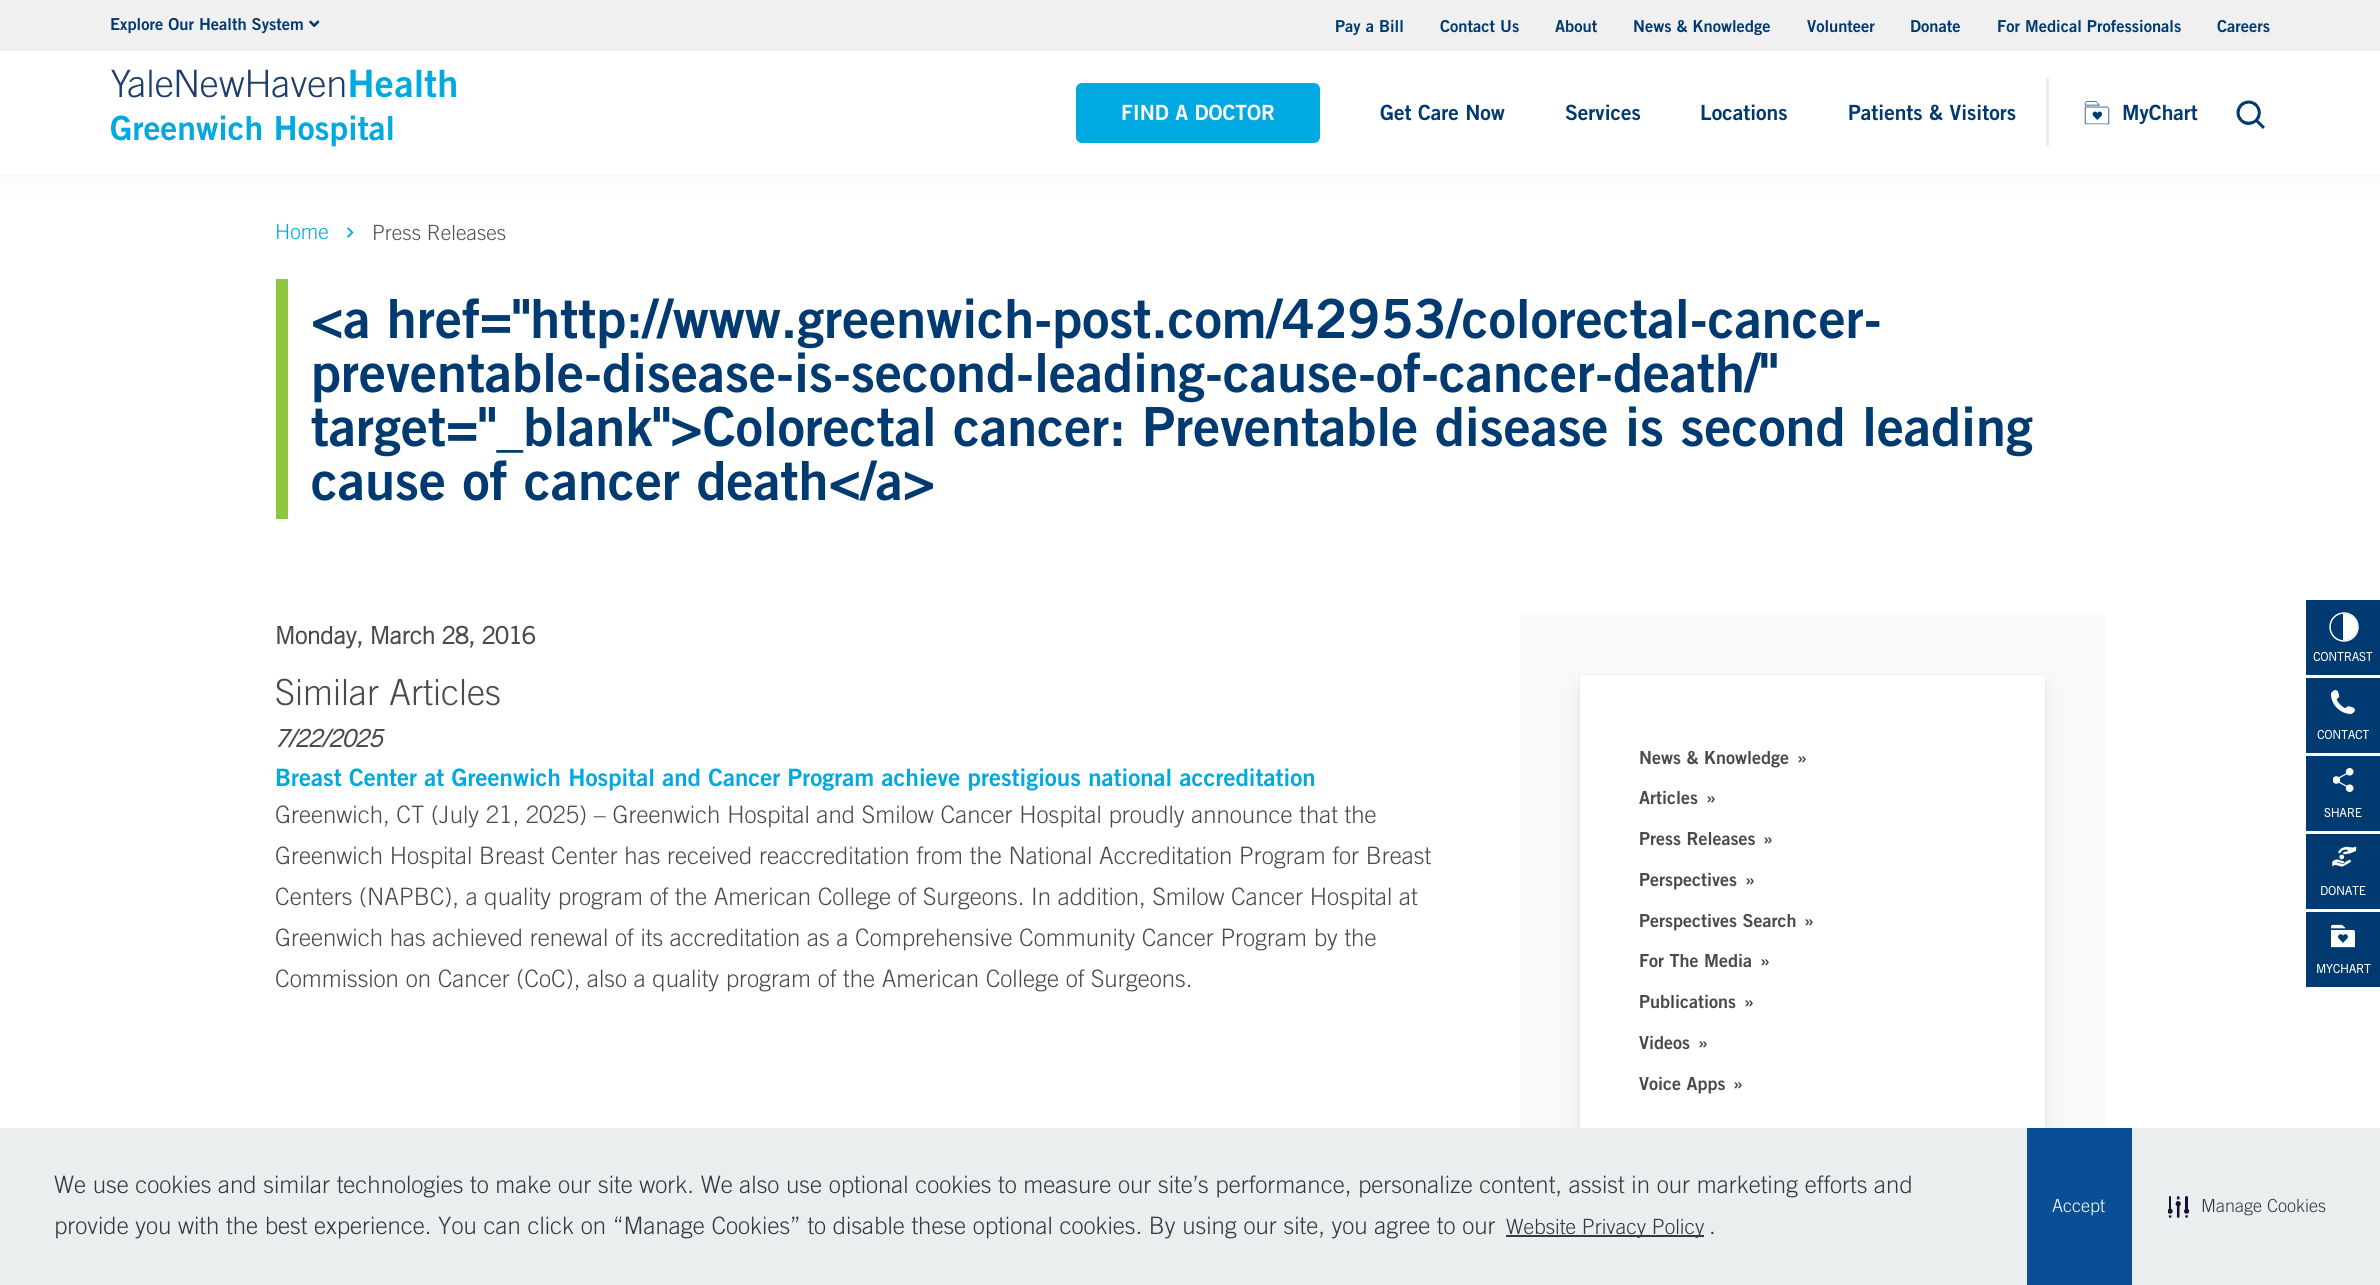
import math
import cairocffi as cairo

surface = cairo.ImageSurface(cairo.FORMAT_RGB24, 2380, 1285)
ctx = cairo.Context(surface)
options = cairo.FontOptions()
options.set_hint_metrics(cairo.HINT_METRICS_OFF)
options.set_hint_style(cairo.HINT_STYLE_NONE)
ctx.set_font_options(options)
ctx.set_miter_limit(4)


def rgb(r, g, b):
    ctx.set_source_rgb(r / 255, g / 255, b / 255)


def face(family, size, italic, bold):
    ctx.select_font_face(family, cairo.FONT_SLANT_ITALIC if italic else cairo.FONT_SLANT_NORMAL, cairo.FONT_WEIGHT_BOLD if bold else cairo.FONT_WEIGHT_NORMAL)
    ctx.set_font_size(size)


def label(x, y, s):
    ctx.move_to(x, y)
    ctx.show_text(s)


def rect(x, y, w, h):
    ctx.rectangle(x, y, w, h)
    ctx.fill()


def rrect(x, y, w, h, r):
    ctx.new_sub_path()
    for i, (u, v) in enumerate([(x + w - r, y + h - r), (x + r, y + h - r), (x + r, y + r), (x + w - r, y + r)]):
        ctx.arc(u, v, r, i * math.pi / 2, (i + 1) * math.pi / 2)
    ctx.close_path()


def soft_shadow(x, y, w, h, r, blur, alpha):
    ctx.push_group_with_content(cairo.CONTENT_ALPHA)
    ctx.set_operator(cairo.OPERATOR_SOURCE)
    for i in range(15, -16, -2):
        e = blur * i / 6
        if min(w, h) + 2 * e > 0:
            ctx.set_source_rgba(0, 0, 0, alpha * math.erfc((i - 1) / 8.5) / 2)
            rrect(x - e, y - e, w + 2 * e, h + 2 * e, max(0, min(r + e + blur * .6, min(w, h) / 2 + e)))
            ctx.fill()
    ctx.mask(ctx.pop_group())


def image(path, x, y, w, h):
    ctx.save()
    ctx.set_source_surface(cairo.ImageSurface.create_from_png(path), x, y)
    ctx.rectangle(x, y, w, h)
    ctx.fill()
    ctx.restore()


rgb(255, 255, 255)
ctx.paint()
rgb(203, 203, 203)
soft_shadow(0, 53, 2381, 123, 0, 13.5, 0.2)
rgb(240, 240, 240)
rect(0, 0, 2380, 51)
face('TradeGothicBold', 16.5, 0, 1)
rgb(0, 58, 112)
label(110, 30, 'Explore Our Health System')
image('image0.png', 309, 20, 11, 8)
label(1335, 32, 'Pay a Bill')
label(1440, 32, 'Contact Us')
label(1555, 32, 'About')
label(1633, 32, 'News & Knowledge')
label(1807, 32, 'Volunteer')
label(1910, 32, 'Donate')
label(1997, 32, 'For Medical Professionals')
label(2217, 32, 'Careers')
rgb(255, 255, 255)
rect(0, 51, 2380, 123)
image('image1.png', 111, 69, 345, 78)
rgb(0, 169, 224)
rrect(1076, 83, 244, 60, 6)
ctx.fill()
face('TradeGothicBold', 21, 0, 1)
rgb(255, 255, 255)
label(1121, 120, 'FIND A DOCTOR')
rgb(0, 58, 112)
label(1380, 120, 'Get Care Now')
label(1565, 120, 'Services')
label(1700, 120, 'Locations')
label(1848, 120, 'Patients & Visitors')
rgb(237, 237, 237)
rect(2046, 78, 3, 68)
image('image2.png', 2084, 101, 26, 24)
rgb(0, 58, 112)
label(2122, 120, 'MyChart')
image('image3.png', 2236, 100, 29, 29)
face('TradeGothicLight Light', 21, 0, 0)
rgb(0, 169, 224)
label(275, 239, 'Home')
image('image4.png', 347, 227, 7, 11)
rgb(82, 82, 82)
label(372, 240, 'Press Releases')
rgb(141, 198, 63)
rect(276, 279, 12, 240)
face('TradeGothicBold', 54, 0, 1)
rgb(0, 58, 112)
label(311, 338, '<a href="http://www.greenwich-post.com/42953/colorectal-cancer-')
label(311, 392, 'preventable-disease-is-second-leading-cause-of-cancer-death/"')
label(311, 446, 'target="_blank">Colorectal cancer: Preventable disease is second leading')
label(311, 500, 'cause of cancer death</a>')
face('TradeGothicLight', 24, 0, 1)
rgb(74, 74, 74)
label(275, 644, 'Monday, March 28, 2016')
face('TradeGothicLight Light', 36, 0, 0)
label(275, 705, 'Similar Articles')
face('TradeGothicLight', 24, 1, 1)
label(275, 747, '7/22/2025')
face('TradeGothicBold', 24, 0, 1)
rgb(0, 169, 224)
label(275, 786, 'Breast Center at Greenwich Hospital and Cancer Program achieve prestigious national accreditation')
face('TradeGothicLight Light', 24, 0, 0)
rgb(74, 74, 74)
label(275, 823, 'Greenwich, CT (July 21, 2025) – Greenwich Hospital and Smilow Cancer Hospital proudly announce that the')
label(275, 864, 'Greenwich Hospital Breast Center has received reaccreditation from the National Accreditation Program for Breast')
label(275, 905, 'Centers (NAPBC), a quality program of the American College of Surgeons. In addition, Smilow Cancer Hospital at')
label(275, 946, 'Greenwich has achieved renewal of its accreditation as a Comprehensive Community Cancer Program by the')
label(275, 987, 'Commission on Cancer (CoC), also a quality program of the American College of Surgeons.')
rgb(249, 249, 249)
rect(1520, 615, 585, 513)
ctx.rectangle(1579, 675, 466, 488)
rgb(244, 244, 244)
ctx.stroke()
rgb(10, 10, 10)
soft_shadow(1583, 690, 459, 482, 0, 12, 0.1)
rgb(255, 255, 255)
rect(1580, 675, 465, 453)
face('TradeGothicBold', 18, 0, 1)
rgb(74, 74, 74)
label(1639, 764, 'News & Knowledge')
label(1797, 764, '»')
label(1639, 804, 'Articles')
label(1706, 804, '»')
label(1639, 845, 'Press Releases')
label(1763, 845, '»')
label(1639, 886, 'Perspectives')
label(1745, 886, '»')
label(1639, 927, 'Perspectives Search')
label(1804, 927, '»')
label(1639, 967, 'For The Media')
label(1760, 967, '»')
label(1639, 1008, 'Publications')
label(1744, 1008, '»')
label(1639, 1049, 'Videos')
label(1698, 1049, '»')
label(1639, 1090, 'Voice Apps')
label(1733, 1090, '»')
rgb(0, 58, 112)
rect(2306, 600, 74, 75)
ctx.new_path()
ctx.arc(2344, 627, 14, 0, 2 * math.pi)
rgb(255, 255, 255)
ctx.set_line_width(1.5)
ctx.stroke()
ctx.set_fill_rule(cairo.FILL_RULE_EVEN_ODD)
ctx.new_path()
ctx.move_to(2343, 640.5)
ctx.curve_to(2362.5, 640.5, 2362.5, 613.5, 2343, 613.5)
ctx.close_path()
ctx.fill()
face('TradeGothicLight', 12, 0, 1)
label(2313, 661, 'CONTRAST')
rgb(0, 58, 112)
rect(2306, 678, 74, 75)
image('image5.png', 2331, 690, 24, 24)
rgb(255, 255, 255)
label(2317, 739, 'CONTACT')
rgb(0, 58, 112)
rect(2306, 756, 74, 75)
image('image6.png', 2333, 768, 21, 24)
rgb(255, 255, 255)
label(2324, 817, 'SHARE')
rgb(0, 58, 112)
rect(2306, 834, 74, 75)
image('image7.png', 2332, 846, 25, 21)
rgb(255, 255, 255)
label(2320, 895, 'DONATE')
rgb(0, 58, 112)
rect(2306, 912, 74, 75)
image('image8.png', 2331, 924, 24, 24)
rgb(255, 255, 255)
label(2316, 973, 'MYCHART')
rgb(235, 238, 239)
rect(0, 1128, 2380, 157)
face('TradeGothicLight Light', 24, 0, 0)
rgb(53, 56, 62)
label(54, 1193, 'We use cookies and similar technologies to make our site work. We also use optional cookies to measure our site’s performance, personalize content, assist in our marketing efforts and')
label(54, 1234, 'provide you with the best experience. You can click on “Manage Cookies” to disable these optional cookies. By using our site, you agree to our')
rect(1506, 1235, 198, 2)
face('TradeGothicLight Light', 21, 0, 0)
label(1506, 1234, 'Website Privacy Policy')
face('TradeGothicLight Light', 24, 0, 0)
label(1709, 1234, '.')
rgb(9, 79, 149)
rect(2027, 1128, 105, 157)
face('TradeGothicLight Light', 18, 0, 0)
rgb(255, 255, 255)
label(2052, 1212, 'Accept')
image('image9.png', 2168, 1196, 22, 22)
rgb(53, 56, 62)
label(2201, 1212, 'Manage Cookies')
surface.write_to_png('render.png')
